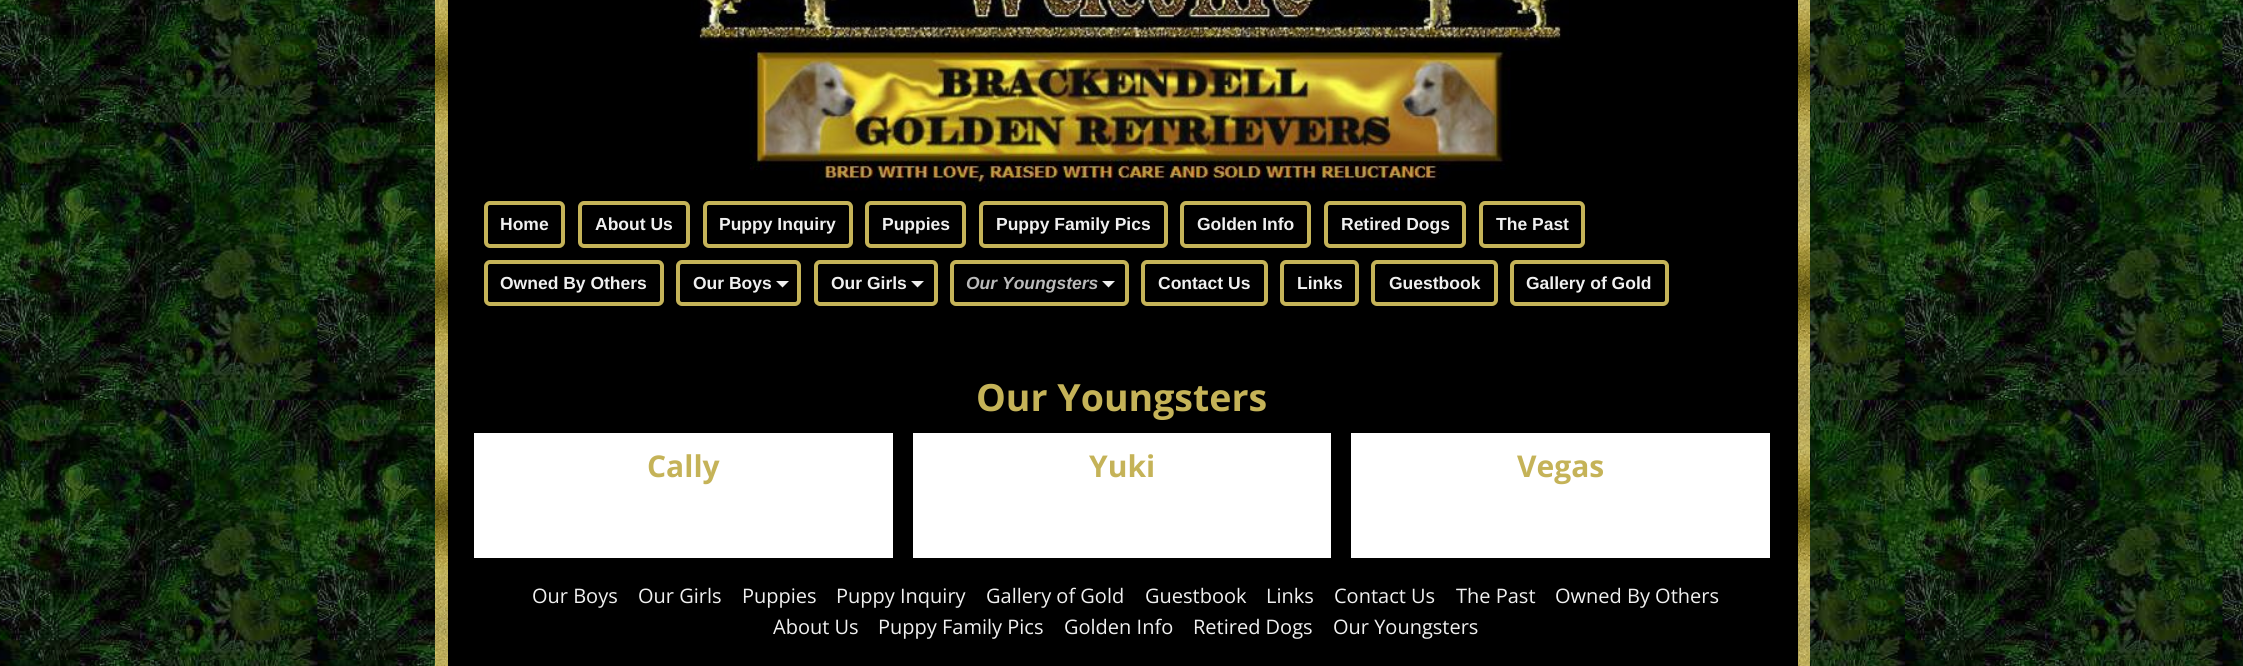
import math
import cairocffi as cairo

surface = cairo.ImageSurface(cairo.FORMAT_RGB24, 2243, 666)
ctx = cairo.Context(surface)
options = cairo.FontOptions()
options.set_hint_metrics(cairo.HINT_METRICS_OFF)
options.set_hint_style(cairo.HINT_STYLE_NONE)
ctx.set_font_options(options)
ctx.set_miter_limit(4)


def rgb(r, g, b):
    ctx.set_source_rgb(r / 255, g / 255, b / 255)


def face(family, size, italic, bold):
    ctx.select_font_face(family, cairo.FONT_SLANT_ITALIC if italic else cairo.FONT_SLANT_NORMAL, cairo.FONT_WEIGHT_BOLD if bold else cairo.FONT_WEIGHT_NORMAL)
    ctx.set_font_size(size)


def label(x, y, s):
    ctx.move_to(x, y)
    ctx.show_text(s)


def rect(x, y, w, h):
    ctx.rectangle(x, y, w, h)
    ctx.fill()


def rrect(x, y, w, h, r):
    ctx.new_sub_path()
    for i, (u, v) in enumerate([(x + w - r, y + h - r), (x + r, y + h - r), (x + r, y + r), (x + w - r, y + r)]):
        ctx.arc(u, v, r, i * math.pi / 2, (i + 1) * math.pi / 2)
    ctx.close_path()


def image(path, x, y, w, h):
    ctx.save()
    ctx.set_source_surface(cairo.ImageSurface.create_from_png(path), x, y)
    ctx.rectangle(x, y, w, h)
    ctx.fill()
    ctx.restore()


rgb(255, 255, 255)
ctx.paint()
image('image0.png', 0, 0, 2243, 666)
image('image1.png', 435, 0, 1375, 666)
rgb(0, 0, 0)
rect(448, 0, 1350, 325)
image('image2.png', 691, 0, 878, 191)
rrect(486, 203, 77, 43, 4)
rgb(197, 179, 88)
ctx.set_line_width(4)
ctx.stroke()
face('Liberation Sans', 17.5, 0, 1)
rgb(240, 240, 240)
label(500, 230, 'Home')
rrect(580, 203, 108, 43, 4)
rgb(197, 179, 88)
ctx.stroke()
rgb(240, 240, 240)
label(595, 230, 'About Us')
rrect(705, 203, 146, 43, 4)
rgb(197, 179, 88)
ctx.stroke()
rgb(240, 240, 240)
label(719, 230, 'Puppy Inquiry')
rrect(867, 203, 97, 43, 4)
rgb(197, 179, 88)
ctx.stroke()
rgb(240, 240, 240)
label(882, 230, 'Puppies')
rrect(981, 203, 185, 43, 4)
rgb(197, 179, 88)
ctx.stroke()
rgb(240, 240, 240)
label(996, 230, 'Puppy Family Pics')
rrect(1182, 203, 127, 43, 4)
rgb(197, 179, 88)
ctx.stroke()
rgb(240, 240, 240)
label(1197, 230, 'Golden Info')
rrect(1326, 203, 138, 43, 4)
rgb(197, 179, 88)
ctx.stroke()
rgb(240, 240, 240)
label(1341, 230, 'Retired Dogs')
rrect(1481, 203, 102, 43, 4)
rgb(197, 179, 88)
ctx.stroke()
rgb(240, 240, 240)
label(1496, 230, 'The Past')
rrect(486, 262, 176, 42, 4)
rgb(197, 179, 88)
ctx.stroke()
rgb(240, 240, 240)
label(500, 289, 'Owned By Others')
rrect(678, 262, 121, 42, 4)
rgb(197, 179, 88)
ctx.stroke()
rgb(240, 240, 240)
label(693, 289, 'Our Boys')
rgb(238, 238, 238)
ctx.new_path()
ctx.move_to(776, 281)
ctx.line_to(789, 281)
ctx.line_to(782.5, 287.5)
ctx.close_path()
ctx.fill()
rrect(816, 262, 120, 42, 4)
rgb(197, 179, 88)
ctx.stroke()
rgb(240, 240, 240)
label(831, 289, 'Our Girls')
rgb(238, 238, 238)
ctx.new_path()
ctx.move_to(911, 281)
ctx.line_to(924, 281)
ctx.line_to(917.5, 287.5)
ctx.close_path()
ctx.fill()
rrect(952, 262, 175, 42, 4)
rgb(197, 179, 88)
ctx.stroke()
face('Liberation Sans', 17.5, 1, 1)
rgb(186, 186, 186)
label(966, 289, 'Our Youngsters')
rgb(238, 238, 238)
ctx.new_path()
ctx.move_to(1102, 281)
ctx.line_to(1115, 281)
ctx.line_to(1108.5, 287.5)
ctx.close_path()
ctx.fill()
rrect(1143, 262, 123, 42, 4)
rgb(197, 179, 88)
ctx.stroke()
face('Liberation Sans', 17.5, 0, 1)
rgb(240, 240, 240)
label(1158, 289, 'Contact Us')
rrect(1282, 262, 75, 42, 4)
rgb(197, 179, 88)
ctx.stroke()
rgb(240, 240, 240)
label(1297, 289, 'Links')
rrect(1373, 262, 123, 42, 4)
rgb(197, 179, 88)
ctx.stroke()
rgb(240, 240, 240)
label(1389, 289, 'Guestbook')
rrect(1512, 262, 155, 42, 4)
rgb(197, 179, 88)
ctx.stroke()
rgb(240, 240, 240)
label(1526, 289, 'Gallery of Gold')
rgb(0, 0, 0)
rect(448, 325, 1350, 341)
face('Open Sans', 37.5, 0, 1)
rgb(197, 179, 88)
label(976, 411, 'Our Youngsters')
rgb(255, 255, 255)
rect(474, 433, 419, 125)
face('Open Sans', 30, 0, 1)
rgb(197, 179, 88)
label(647, 477, 'Cally')
rgb(255, 255, 255)
rect(913, 433, 418, 125)
rgb(197, 179, 88)
label(1089, 477, 'Yuki')
rgb(255, 255, 255)
rect(1351, 433, 419, 125)
rgb(197, 179, 88)
label(1517, 477, 'Vegas')
face('Open Sans', 20, 0, 0)
rgb(240, 240, 240)
label(532, 603, 'Our Boys')
label(638, 603, 'Our Girls')
label(742, 603, 'Puppies')
label(836, 603, 'Puppy Inquiry')
label(986, 603, 'Gallery of Gold')
label(1145, 603, 'Guestbook')
label(1266, 603, 'Links')
label(1334, 603, 'Contact Us')
label(1456, 603, 'The Past')
label(1555, 603, 'Owned By Others')
label(773, 634, 'About Us')
label(878, 634, 'Puppy Family Pics')
label(1064, 634, 'Golden Info')
label(1193, 634, 'Retired Dogs')
label(1333, 634, 'Our Youngsters')
surface.write_to_png('render.png')
